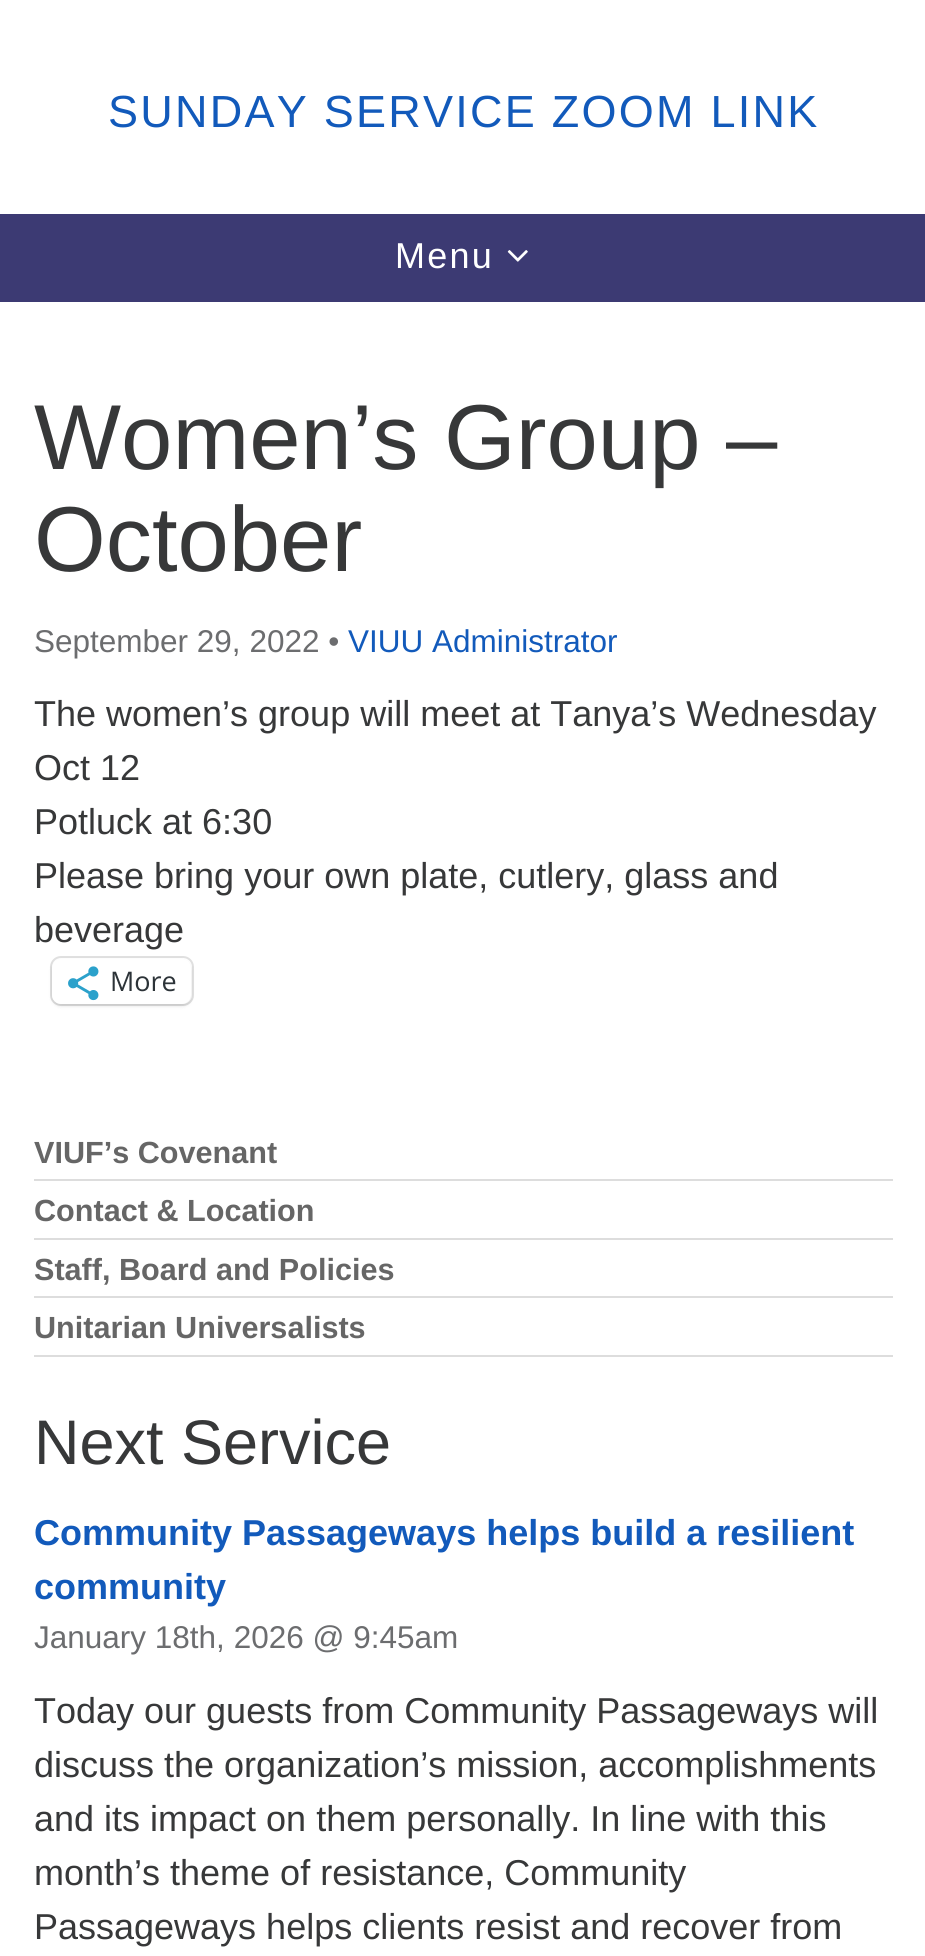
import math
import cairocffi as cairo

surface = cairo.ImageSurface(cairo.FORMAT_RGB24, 925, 1956)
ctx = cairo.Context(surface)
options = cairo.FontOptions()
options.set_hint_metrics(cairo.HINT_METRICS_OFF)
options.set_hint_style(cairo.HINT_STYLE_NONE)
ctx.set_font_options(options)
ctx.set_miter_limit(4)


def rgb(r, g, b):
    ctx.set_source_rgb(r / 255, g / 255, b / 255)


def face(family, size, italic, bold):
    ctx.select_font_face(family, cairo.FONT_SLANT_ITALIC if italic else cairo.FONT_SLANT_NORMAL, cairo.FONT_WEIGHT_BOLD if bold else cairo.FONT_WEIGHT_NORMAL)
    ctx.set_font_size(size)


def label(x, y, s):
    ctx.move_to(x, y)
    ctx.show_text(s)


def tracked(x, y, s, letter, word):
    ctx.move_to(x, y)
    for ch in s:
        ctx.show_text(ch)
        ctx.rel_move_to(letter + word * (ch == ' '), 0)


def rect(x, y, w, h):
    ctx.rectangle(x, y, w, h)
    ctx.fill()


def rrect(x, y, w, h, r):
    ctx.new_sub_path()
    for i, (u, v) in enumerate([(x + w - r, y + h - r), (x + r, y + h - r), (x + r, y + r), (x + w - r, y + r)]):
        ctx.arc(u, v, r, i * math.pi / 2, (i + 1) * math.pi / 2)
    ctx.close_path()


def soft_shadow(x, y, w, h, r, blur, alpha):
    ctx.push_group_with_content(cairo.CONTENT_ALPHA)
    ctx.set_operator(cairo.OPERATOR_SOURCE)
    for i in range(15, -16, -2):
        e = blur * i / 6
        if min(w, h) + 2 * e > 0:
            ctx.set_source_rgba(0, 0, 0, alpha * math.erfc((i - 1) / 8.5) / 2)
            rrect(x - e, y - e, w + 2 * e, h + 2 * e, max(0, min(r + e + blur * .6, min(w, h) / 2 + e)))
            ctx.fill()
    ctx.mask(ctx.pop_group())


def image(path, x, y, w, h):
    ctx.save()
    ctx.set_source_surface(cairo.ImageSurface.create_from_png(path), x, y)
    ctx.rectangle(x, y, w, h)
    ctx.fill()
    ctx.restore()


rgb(255, 255, 255)
ctx.paint()
face('Liberation Sans', 45, 0, 0)
rgb(18, 90, 187)
tracked(108, 127, 'SUNDAY SERVICE ZOOM LINK', 2.25, 0)
rgb(60, 58, 115)
rect(0, 214, 925, 88)
face('Liberation Sans', 36, 0, 0)
rgb(255, 255, 255)
tracked(395, 268, 'Menu', 2.25, 0)
image('image0.png', 507, 250, 21, 12)
face('Liberation Sans', 92.25, 0, 0)
rgb(55, 56, 57)
label(34, 469, 'Women’s Group –')
label(34, 571, 'October')
face('Liberation Sans', 31.5, 0, 0)
rgb(108, 109, 111)
label(34, 652, 'September 29, 2022 •')
rgb(18, 90, 187)
label(348, 652, 'VIUU Administrator')
face('Liberation Sans', 36, 0, 0)
rgb(55, 56, 57)
label(34, 726, 'The women’s group will meet at Tanya’s Wednesday')
label(34, 780, 'Oct 12')
label(34, 834, 'Potluck at 6:30')
label(34, 888, 'Please bring your own plate, cutlery, glass and')
label(34, 942, 'beverage')
rrect(51, 957, 142, 48, 10)
rgb(224, 224, 224)
ctx.stroke()
rgb(0, 0, 0)
soft_shadow(52, 961, 139, 45, 9, 2, 0.12)
rgb(255, 255, 255)
rrect(52, 959, 139, 45, 9)
ctx.fill()
image('image1.png', 68, 966, 31, 35)
face('Open Sans', 27, 0, 0)
rgb(44, 51, 56)
label(110, 991, 'More')
rgb(221, 221, 221)
rect(34, 1179, 859, 2)
face('Liberation Sans', 30.6, 0, 1)
rgb(102, 102, 102)
label(34, 1163, 'VIUF’s Covenant')
rgb(221, 221, 221)
rect(34, 1238, 859, 2)
rgb(102, 102, 102)
label(34, 1221, 'Contact & Location')
rgb(221, 221, 221)
rect(34, 1296, 859, 2)
rgb(102, 102, 102)
label(34, 1280, 'Staff, Board and Policies')
rgb(221, 221, 221)
rect(34, 1355, 859, 2)
rgb(102, 102, 102)
label(34, 1338, 'Unitarian Universalists')
face('Liberation Sans', 63, 0, 0)
rgb(55, 56, 57)
label(34, 1464, 'Next Service')
face('Liberation Sans', 36, 0, 1)
rgb(18, 90, 187)
label(34, 1545, 'Community Passageways helps build a resilient')
label(34, 1599, 'community')
face('Liberation Sans', 31.5, 0, 0)
rgb(108, 109, 111)
label(34, 1648, 'January 18th, 2026 @ 9:45am')
face('Liberation Sans', 36, 0, 0)
rgb(55, 56, 57)
label(34, 1723, 'Today our guests from Community Passageways will')
label(34, 1777, 'discuss the organization’s mission, accomplishments')
label(34, 1831, 'and its impact on them personally. In line with this')
label(34, 1885, 'month’s theme of resistance, Community')
label(34, 1939, 'Passageways helps clients resist and recover from')
surface.write_to_png('render.png')
